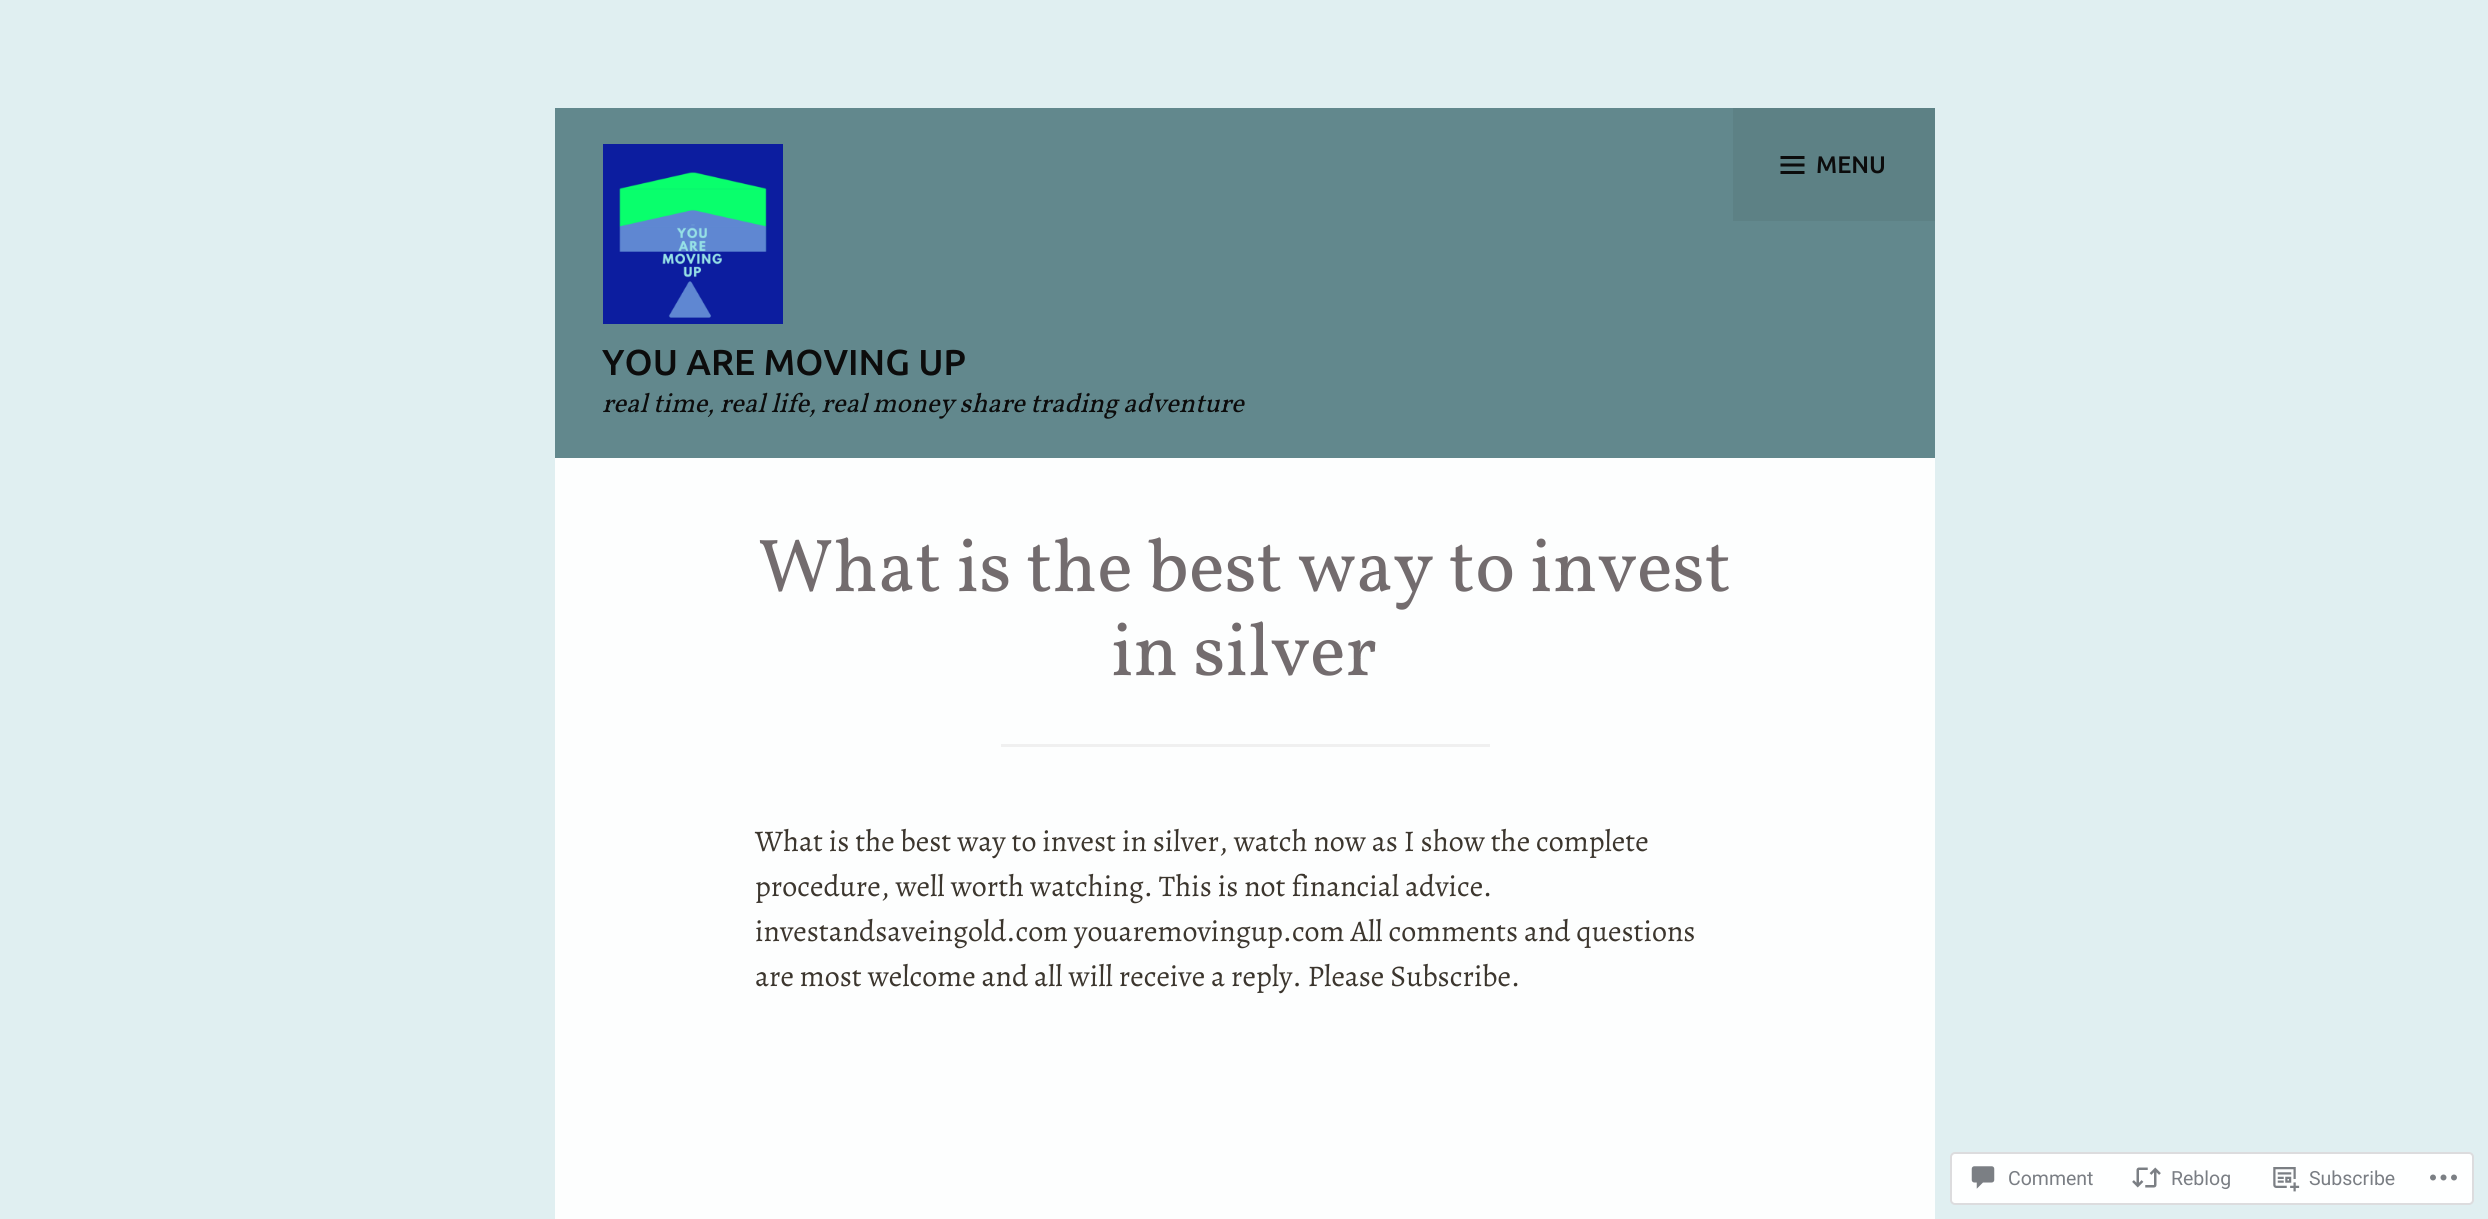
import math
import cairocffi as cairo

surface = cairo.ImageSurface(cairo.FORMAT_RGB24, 2488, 1219)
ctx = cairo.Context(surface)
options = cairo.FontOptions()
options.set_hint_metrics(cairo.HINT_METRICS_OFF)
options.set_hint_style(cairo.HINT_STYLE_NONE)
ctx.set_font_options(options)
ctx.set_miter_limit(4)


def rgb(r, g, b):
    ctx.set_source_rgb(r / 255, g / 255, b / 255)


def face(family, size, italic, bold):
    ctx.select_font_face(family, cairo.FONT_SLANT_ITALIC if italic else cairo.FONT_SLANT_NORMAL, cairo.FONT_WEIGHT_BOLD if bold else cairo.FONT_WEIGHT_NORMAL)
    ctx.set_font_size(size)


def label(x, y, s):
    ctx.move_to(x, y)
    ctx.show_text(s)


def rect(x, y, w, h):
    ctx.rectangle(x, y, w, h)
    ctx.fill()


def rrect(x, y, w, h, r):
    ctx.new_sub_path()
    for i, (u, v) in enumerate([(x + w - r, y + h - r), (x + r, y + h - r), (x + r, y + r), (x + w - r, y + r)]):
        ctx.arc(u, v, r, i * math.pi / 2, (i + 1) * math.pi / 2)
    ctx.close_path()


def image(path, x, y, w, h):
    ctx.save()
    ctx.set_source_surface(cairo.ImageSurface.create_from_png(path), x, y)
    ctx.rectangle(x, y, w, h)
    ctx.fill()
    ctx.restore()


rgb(224, 239, 241)
ctx.paint()
rgb(98, 136, 141)
rect(555, 108, 1380, 350)
rgb(93, 129, 133)
rect(1733, 108, 202, 113)
image('image0.png', 1780, 156, 25, 18)
face('Ubuntu Medium', 24, 0, 0)
rgb(12, 12, 12)
label(1816, 173, 'MENU')
image('image1.png', 603, 144, 180, 180)
face('Ubuntu Medium', 36, 0, 0)
label(602, 375, 'YOU ARE MOVING UP')
face('Vollkorn', 27, 1, 0)
label(602, 412, 'real time, real life, real money share trading adventure')
rgb(253, 254, 254)
rect(555, 458, 1380, 761)
face('Vollkorn', 75, 0, 0)
rgb(115, 108, 110)
label(758, 591, 'What is the best way to invest')
label(1111, 675, 'in silver')
rgb(240, 240, 240)
rect(1001, 744, 489, 3)
face('Alegreya', 30, 0, 0)
rgb(60, 54, 46)
label(755, 851, 'What is the best way to invest in silver, watch now as I show the complete')
label(755, 896, 'procedure, well worth watching. This is not financial advice.')
label(755, 941, 'investandsaveingold.com youaremovingup.com All comments and questions')
label(755, 986, 'are most welcome and all will receive a reply. Please Subscribe.')
rgb(254, 255, 255)
rrect(1951, 1153, 522, 51, 4)
ctx.fill_preserve()
rgb(220, 220, 222)
ctx.stroke()
image('image2.png', 1971, 1166, 24, 23)
face('Roboto', 19.5, 0, 0)
rgb(122, 126, 132)
label(2008, 1185, 'Comment')
image('image3.png', 2132, 1167, 29, 21)
label(2171, 1185, 'Reblog')
image('image4.png', 2273, 1167, 27, 25)
label(2309, 1185, 'Subscribe')
image('image5.png', 2430, 1174, 27, 7)
surface.write_to_png('render.png')
